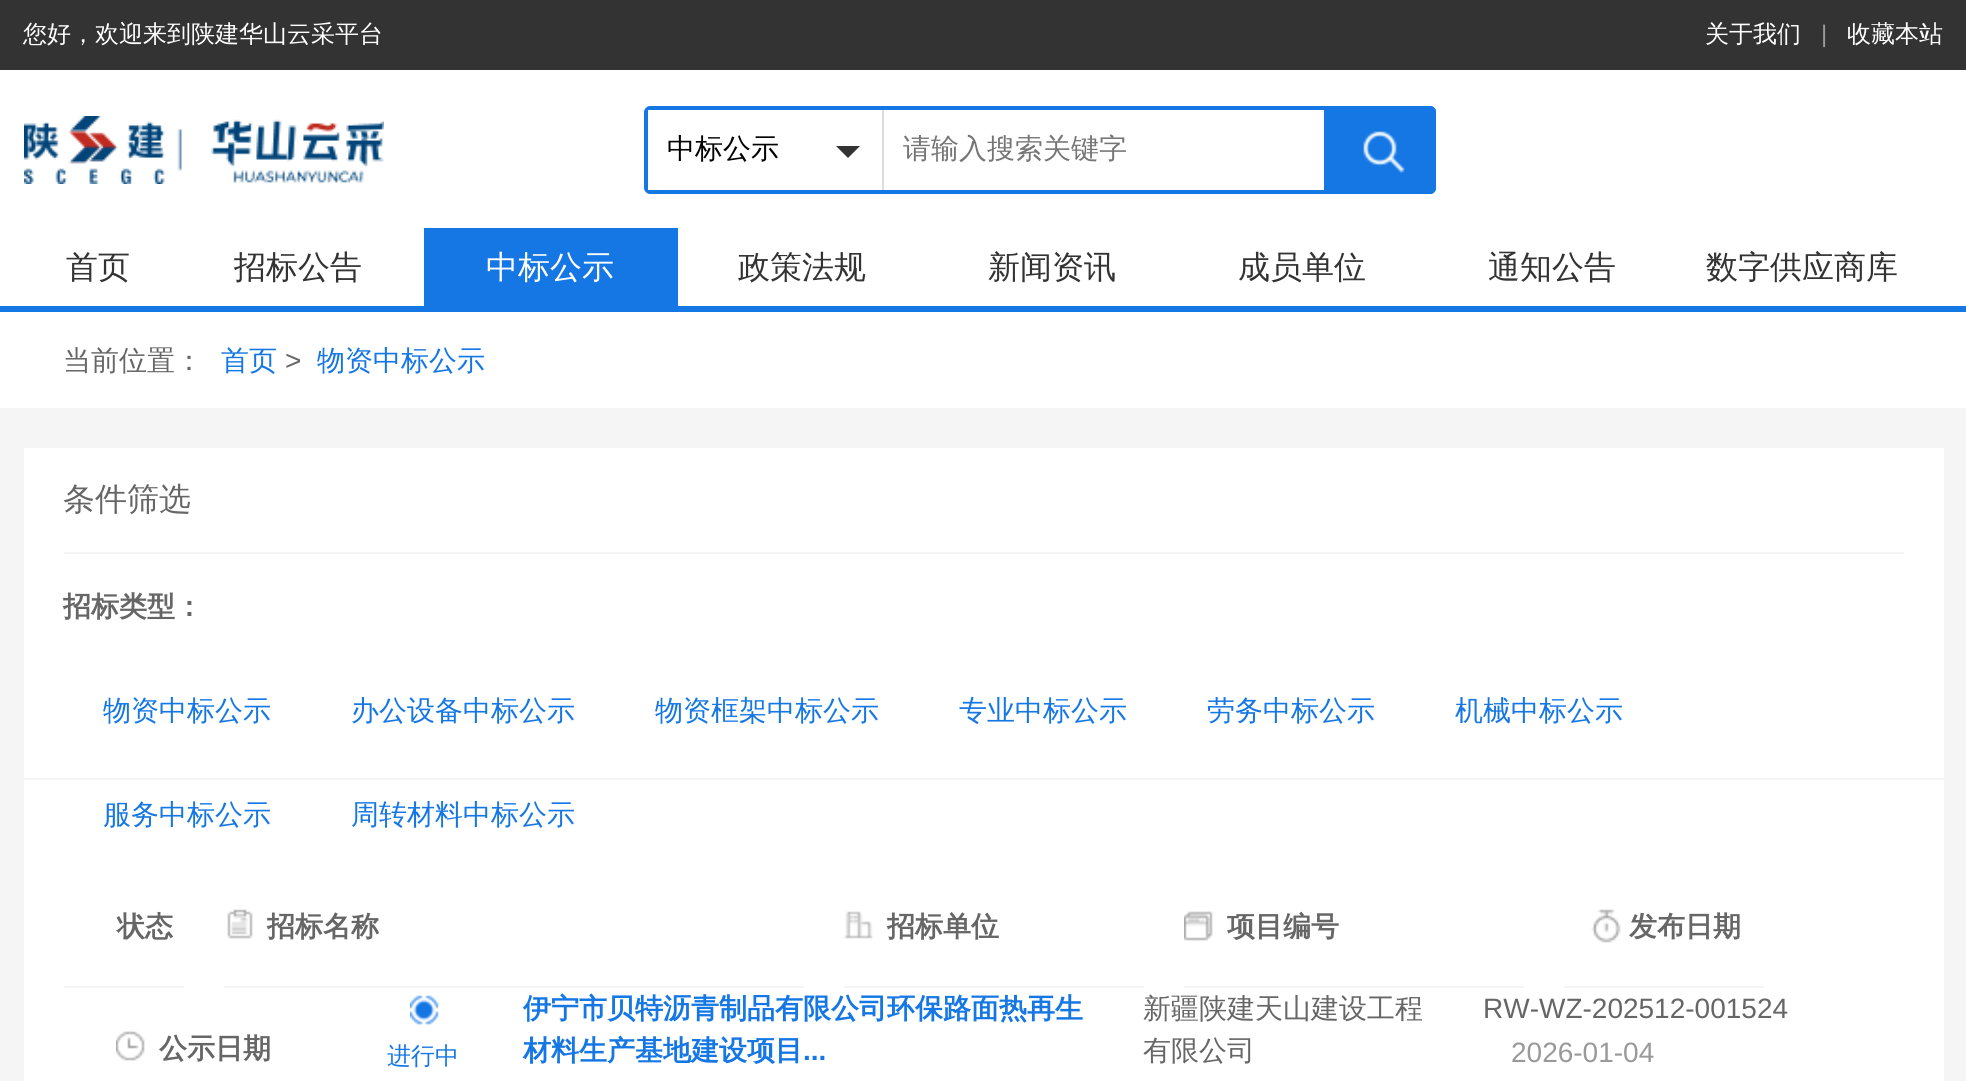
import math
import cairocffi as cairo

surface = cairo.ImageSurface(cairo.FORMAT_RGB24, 1966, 1081)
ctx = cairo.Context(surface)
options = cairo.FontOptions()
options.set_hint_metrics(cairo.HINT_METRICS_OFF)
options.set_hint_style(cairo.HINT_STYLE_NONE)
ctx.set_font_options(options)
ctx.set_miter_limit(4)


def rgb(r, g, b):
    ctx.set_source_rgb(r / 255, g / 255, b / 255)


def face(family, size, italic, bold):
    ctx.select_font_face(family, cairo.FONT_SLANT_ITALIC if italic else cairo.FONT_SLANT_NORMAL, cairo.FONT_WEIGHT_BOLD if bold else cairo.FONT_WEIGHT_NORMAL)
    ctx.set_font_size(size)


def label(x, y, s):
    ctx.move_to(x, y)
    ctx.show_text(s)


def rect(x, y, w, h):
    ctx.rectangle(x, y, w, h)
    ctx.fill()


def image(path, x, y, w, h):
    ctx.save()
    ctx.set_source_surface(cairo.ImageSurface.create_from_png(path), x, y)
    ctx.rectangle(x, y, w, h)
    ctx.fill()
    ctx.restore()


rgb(245, 245, 245)
ctx.paint()
rgb(51, 51, 51)
rect(0, 0, 1966, 70)
face('WenQuanYi Zen Hei Medium', 24, 0, 0)
rgb(255, 255, 255)
label(23, 42, '您好，欢迎来到陕建华山云采平台')
label(1705, 42, '关于我们')
face('Liberation Sans', 24, 0, 0)
rgb(153, 153, 153)
label(1821, 42, '|')
face('WenQuanYi Zen Hei Medium', 24, 0, 0)
rgb(255, 255, 255)
label(1847, 42, '收藏本站')
rect(0, 70, 1966, 236)
rgb(21, 119, 228)
rect(0, 306, 1966, 6)
image('image0.png', 24, 116, 360, 68)
ctx.set_fill_rule(cairo.FILL_RULE_EVEN_ODD)
ctx.new_path()
ctx.move_to(650, 106)
ctx.line_to(884, 106)
ctx.line_to(884, 194)
ctx.line_to(650, 194)
ctx.curve_to(647, 194, 644, 191, 644, 188)
ctx.line_to(644, 112)
ctx.curve_to(644, 109, 647, 106, 650, 106)
ctx.close_path()
ctx.move_to(650, 110)
ctx.line_to(884, 110)
ctx.line_to(884, 190)
ctx.line_to(650, 190)
ctx.curve_to(649, 190, 648, 189, 648, 188)
ctx.line_to(648, 112)
ctx.curve_to(648, 111, 649, 110, 650, 110)
ctx.close_path()
ctx.fill()
rgb(255, 255, 255)
rect(648, 110, 2, 80)
rgb(221, 221, 221)
rect(882, 110, 2, 80)
face('WenQuanYi Zen Hei Medium', 28, 0, 0)
rgb(0, 0, 0)
label(667, 158, '中标公示')
rgb(51, 51, 51)
ctx.set_fill_rule(cairo.FILL_RULE_WINDING)
ctx.new_path()
ctx.move_to(836, 146)
ctx.line_to(860, 146)
ctx.line_to(848, 158)
ctx.close_path()
ctx.fill()
rgb(21, 119, 228)
rect(884, 106, 444, 4)
rect(1324, 106, 4, 88)
rect(884, 190, 444, 4)
rgb(117, 117, 117)
label(903, 158, '请输入搜索关键字')
rgb(21, 119, 228)
ctx.new_path()
ctx.move_to(1328, 106)
ctx.line_to(1430, 106)
ctx.curve_to(1433.5, 106, 1436, 108.5, 1436, 112)
ctx.line_to(1436, 188)
ctx.curve_to(1436, 191.5, 1433.5, 194, 1430, 194)
ctx.line_to(1328, 194)
ctx.close_path()
ctx.fill()
image('image1.png', 1363, 131, 42, 42)
ctx.new_path()
ctx.move_to(1330, 108)
ctx.line_to(1430, 108)
ctx.curve_to(1432, 108, 1434, 110, 1434, 112)
ctx.line_to(1434, 188)
ctx.curve_to(1434, 190, 1432, 192, 1430, 192)
ctx.line_to(1330, 192)
ctx.close_path()
ctx.set_line_width(4)
ctx.stroke()
face('WenQuanYi Zen Hei Medium', 32, 0, 0)
rgb(51, 51, 51)
label(66, 278, '首页')
label(234, 278, '招标公告')
rgb(21, 119, 228)
rect(424, 228, 254, 78)
rgb(255, 255, 255)
label(486, 278, '中标公示')
rgb(51, 51, 51)
label(738, 278, '政策法规')
label(988, 278, '新闻资讯')
label(1238, 278, '成员单位')
label(1488, 278, '通知公告')
label(1706, 278, '数字供应商库')
rgb(255, 255, 255)
rect(0, 312, 1966, 96)
face('WenQuanYi Zen Hei Medium', 28, 0, 0)
rgb(102, 102, 102)
label(63, 370, '当前位置：')
rgb(21, 119, 228)
label(221, 370, '首页')
face('Liberation Sans', 28, 0, 0)
rgb(102, 102, 102)
label(285, 370, '>')
face('WenQuanYi Zen Hei Medium', 28, 0, 0)
rgb(21, 119, 228)
label(317, 370, '物资中标公示')
rgb(255, 255, 255)
rect(24, 448, 1920, 633)
rgb(245, 245, 245)
rect(64, 552, 1840, 2)
face('WenQuanYi Zen Hei Medium', 32, 0, 0)
rgb(102, 102, 102)
label(63, 510, '条件筛选')
face('WenQuanYi Zen Hei', 28, 0, 1)
label(63, 616, '招标类型：')
face('WenQuanYi Zen Hei Medium', 28, 0, 0)
rgb(21, 119, 228)
label(103, 720, '物资中标公示')
label(351, 720, '办公设备中标公示')
label(655, 720, '物资框架中标公示')
label(959, 720, '专业中标公示')
label(1207, 720, '劳务中标公示')
label(1455, 720, '机械中标公示')
label(103, 824, '服务中标公示')
label(351, 824, '周转材料中标公示')
rgb(245, 245, 245)
rect(24, 778, 1920, 2)
rect(64, 986, 120, 2)
face('WenQuanYi Zen Hei', 28, 0, 1)
rgb(102, 102, 102)
label(117, 936, '状态')
rgb(245, 245, 245)
rect(224, 986, 580, 2)
image('image2.png', 227, 909, 26, 30)
rgb(102, 102, 102)
label(267, 936, '招标名称')
rgb(245, 245, 245)
rect(844, 986, 300, 2)
image('image3.png', 844, 911, 29, 28)
rgb(102, 102, 102)
label(887, 936, '招标单位')
rgb(245, 245, 245)
rect(1184, 986, 340, 2)
image('image4.png', 1184, 911, 29, 30)
rgb(102, 102, 102)
label(1227, 936, '项目编号')
rgb(245, 245, 245)
rect(1564, 986, 200, 2)
image('image5.png', 1591, 909, 30, 34)
rgb(102, 102, 102)
label(1629, 936, '发布日期')
image('image6.png', 116, 1030, 29, 31)
label(159, 1058, '公示日期')
rgb(21, 119, 228)
label(523, 1018, '伊宁市贝特沥青制品有限公司环保路面热再生')
label(523, 1060, '材料生产基地建设项目')
face('Liberation Sans', 28, 0, 1)
label(803, 1060, '...')
face('WenQuanYi Zen Hei Medium', 28, 0, 0)
rgb(102, 102, 102)
label(1143, 1018, '新疆陕建天山建设工程')
label(1143, 1060, '有限公司')
face('Liberation Sans', 28, 0, 0)
label(1483, 1018, 'RW-WZ-202512-001524')
image('image7.png', 410, 995, 29, 30)
face('WenQuanYi Zen Hei Medium', 24, 0, 0)
rgb(21, 119, 228)
label(387, 1064, '进行中')
face('Liberation Sans', 28, 0, 0)
rgb(153, 153, 153)
label(1511, 1062, '2026-01-04')
surface.write_to_png('render.png')
